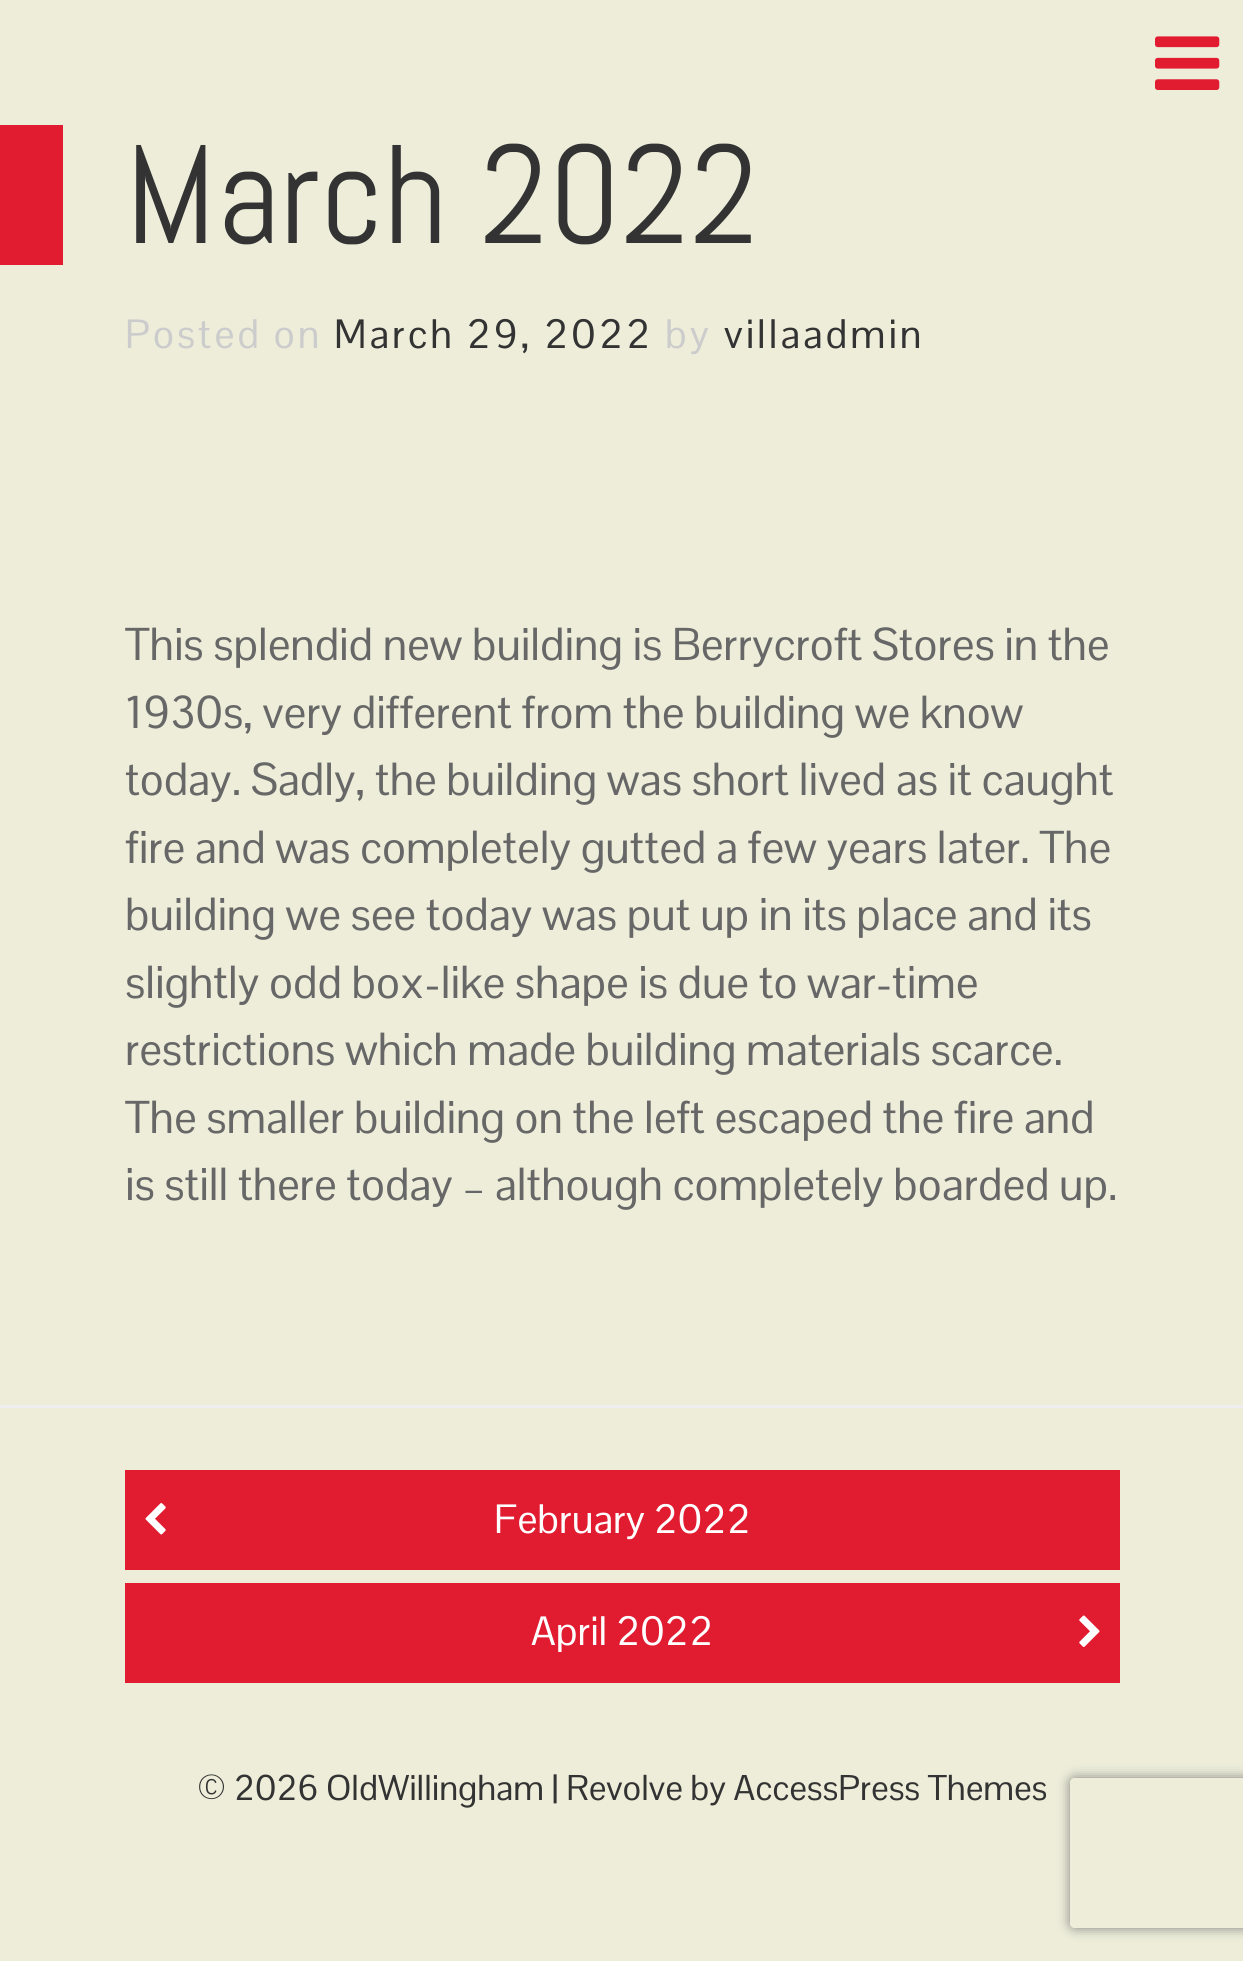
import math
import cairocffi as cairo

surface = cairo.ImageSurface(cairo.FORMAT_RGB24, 1243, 1961)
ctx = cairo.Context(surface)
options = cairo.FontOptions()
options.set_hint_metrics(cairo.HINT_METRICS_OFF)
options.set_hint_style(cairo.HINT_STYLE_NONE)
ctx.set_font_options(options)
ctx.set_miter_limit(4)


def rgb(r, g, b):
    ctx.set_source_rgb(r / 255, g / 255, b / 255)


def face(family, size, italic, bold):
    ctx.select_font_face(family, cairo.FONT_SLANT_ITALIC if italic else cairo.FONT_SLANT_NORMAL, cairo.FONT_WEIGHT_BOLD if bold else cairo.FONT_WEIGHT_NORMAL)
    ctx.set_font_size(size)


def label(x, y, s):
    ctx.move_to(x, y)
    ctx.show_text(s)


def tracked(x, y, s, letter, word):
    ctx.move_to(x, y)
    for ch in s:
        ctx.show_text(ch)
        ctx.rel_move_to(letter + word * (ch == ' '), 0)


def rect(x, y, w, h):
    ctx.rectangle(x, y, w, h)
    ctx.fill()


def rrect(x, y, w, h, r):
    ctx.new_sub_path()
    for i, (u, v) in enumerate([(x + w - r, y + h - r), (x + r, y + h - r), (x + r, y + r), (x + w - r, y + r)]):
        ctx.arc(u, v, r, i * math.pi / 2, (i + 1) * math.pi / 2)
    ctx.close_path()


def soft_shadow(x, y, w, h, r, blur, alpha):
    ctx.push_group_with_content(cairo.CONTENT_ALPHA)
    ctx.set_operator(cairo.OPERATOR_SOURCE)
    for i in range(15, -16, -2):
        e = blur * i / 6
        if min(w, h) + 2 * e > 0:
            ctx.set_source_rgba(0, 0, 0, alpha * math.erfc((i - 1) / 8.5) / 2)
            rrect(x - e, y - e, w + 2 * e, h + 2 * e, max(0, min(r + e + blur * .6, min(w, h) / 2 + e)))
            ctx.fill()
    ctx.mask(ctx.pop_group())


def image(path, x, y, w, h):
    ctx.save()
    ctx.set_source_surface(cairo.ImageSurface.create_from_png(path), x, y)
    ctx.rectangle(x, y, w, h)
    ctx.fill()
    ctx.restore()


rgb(237, 237, 218)
ctx.paint()
image('image0.png', 1155, 36, 65, 54)
rgb(238, 238, 238)
rect(0, 1405, 1243, 3)
rgb(225, 27, 48)
rect(0, 125, 63, 140)
face('Abel', 140, 0, 0)
rgb(51, 51, 51)
label(125, 243, 'March 2022')
face('Pontano Sans', 40, 0, 0)
rgb(204, 204, 204)
tracked(125, 348, 'Posted on', 3, 0)
rgb(51, 51, 51)
tracked(334, 348, 'March 29, 2022', 3, 0)
rgb(204, 204, 204)
tracked(665, 348, 'by', 3, 0)
rgb(51, 51, 51)
tracked(724, 348, 'villaadmin', 3, 0)
face('Pontano Sans', 45, 0, 0)
rgb(103, 103, 103)
label(125, 660, 'This splendid new building is Berrycroft Stores in the')
label(125, 728, '1930s, very different from the building we know')
label(125, 795, 'today. Sadly, the building was short lived as it caught')
label(125, 863, 'fire and was completely gutted a few years later. The')
label(125, 930, 'building we see today was put up in its place and its')
label(125, 998, 'slightly odd box-like shape is due to war-time')
label(125, 1065, 'restrictions which made building materials scarce.')
label(125, 1133, 'The smaller building on the left escaped the fire and')
label(125, 1200, 'is still there today – although completely boarded up.')
rgb(225, 27, 48)
rect(125, 1470, 995, 100)
image('image1.png', 145, 1503, 21, 32)
face('Pontano Sans', 40, 0, 0)
rgb(255, 255, 255)
label(494, 1533, 'February 2022')
rgb(225, 27, 48)
rect(125, 1583, 995, 100)
rgb(255, 255, 255)
label(531, 1645, 'April 2022')
image('image2.png', 1079, 1615, 21, 32)
face('Pontano Sans', 35, 0, 0)
rgb(51, 51, 51)
label(197, 1800, '© 2026 OldWillingham | Revolve by AccessPress Themes')
ctx.save()
ctx.set_fill_rule(cairo.FILL_RULE_EVEN_ODD)
ctx.new_path()
ctx.move_to(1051, 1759)
ctx.line_to(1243, 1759)
ctx.line_to(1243, 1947)
ctx.line_to(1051, 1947)
ctx.close_path()
ctx.move_to(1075, 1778)
ctx.line_to(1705, 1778)
ctx.curve_to(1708, 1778, 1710, 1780, 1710, 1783)
ctx.line_to(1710, 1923)
ctx.curve_to(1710, 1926, 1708, 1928, 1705, 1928)
ctx.line_to(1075, 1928)
ctx.curve_to(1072, 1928, 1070, 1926, 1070, 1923)
ctx.line_to(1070, 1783)
ctx.curve_to(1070, 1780, 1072, 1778, 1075, 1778)
ctx.close_path()
ctx.clip()
rgb(128, 128, 128)
soft_shadow(1070, 1778, 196, 150, 5, 6, 1)
ctx.restore()
surface.write_to_png('render.png')
